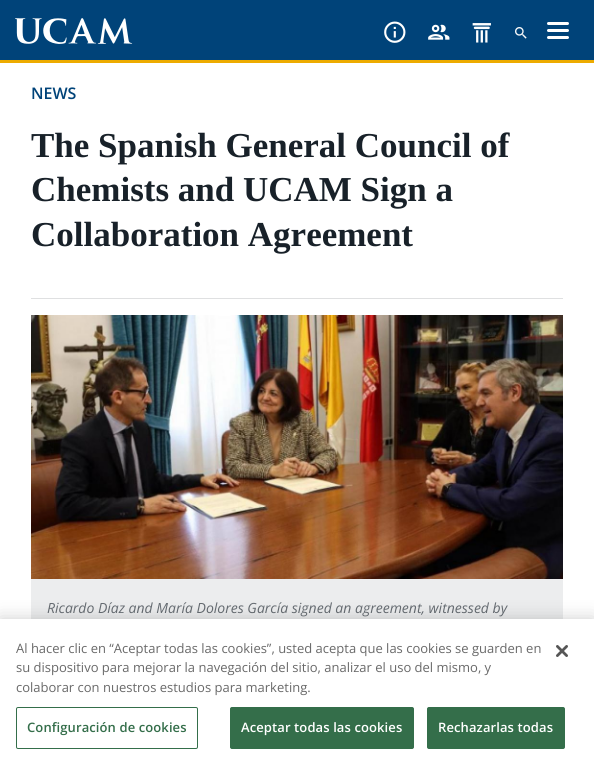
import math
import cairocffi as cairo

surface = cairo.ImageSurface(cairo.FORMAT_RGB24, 594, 770)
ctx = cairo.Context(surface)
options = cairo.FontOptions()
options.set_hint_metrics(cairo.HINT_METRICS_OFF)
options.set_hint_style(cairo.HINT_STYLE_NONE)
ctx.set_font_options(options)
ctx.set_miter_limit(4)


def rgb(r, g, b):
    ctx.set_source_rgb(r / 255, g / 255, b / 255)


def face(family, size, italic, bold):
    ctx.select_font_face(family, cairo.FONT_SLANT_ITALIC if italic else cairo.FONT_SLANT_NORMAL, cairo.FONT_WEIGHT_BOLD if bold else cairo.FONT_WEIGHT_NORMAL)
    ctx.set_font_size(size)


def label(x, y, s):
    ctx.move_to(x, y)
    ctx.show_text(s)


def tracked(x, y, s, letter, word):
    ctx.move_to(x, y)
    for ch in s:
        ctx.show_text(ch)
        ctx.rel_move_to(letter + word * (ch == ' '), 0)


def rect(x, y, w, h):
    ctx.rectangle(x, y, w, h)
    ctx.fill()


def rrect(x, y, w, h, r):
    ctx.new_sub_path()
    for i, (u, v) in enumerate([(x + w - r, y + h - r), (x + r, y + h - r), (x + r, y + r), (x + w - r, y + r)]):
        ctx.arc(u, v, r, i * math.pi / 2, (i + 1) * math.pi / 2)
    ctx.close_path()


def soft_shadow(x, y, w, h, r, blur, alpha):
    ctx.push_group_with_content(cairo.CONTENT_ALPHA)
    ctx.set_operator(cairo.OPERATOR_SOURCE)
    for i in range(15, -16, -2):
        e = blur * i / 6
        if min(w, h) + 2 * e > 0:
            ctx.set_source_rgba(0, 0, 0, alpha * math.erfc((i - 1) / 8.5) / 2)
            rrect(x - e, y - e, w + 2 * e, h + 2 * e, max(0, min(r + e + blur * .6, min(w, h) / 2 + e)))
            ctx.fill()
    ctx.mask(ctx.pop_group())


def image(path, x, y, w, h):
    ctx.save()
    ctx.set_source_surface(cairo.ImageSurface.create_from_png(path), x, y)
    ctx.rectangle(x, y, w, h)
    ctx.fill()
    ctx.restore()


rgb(255, 255, 255)
ctx.paint()
rgb(0, 67, 121)
rect(0, 0, 594, 60)
rgb(237, 171, 0)
rect(0, 60, 594, 3)
image('image0.png', 15, 18, 118, 26)
image('image1.png', 384, 21, 22, 22)
image('image2.png', 428, 24, 22, 16)
image('image3.png', 472, 23, 19, 20)
image('image4.png', 515, 27, 12, 12)
rgb(255, 255, 255)
rrect(547, 29, 22, 3, 1.5)
ctx.fill()
rrect(547, 22, 22, 3, 1.5)
ctx.fill()
rrect(547, 36, 22, 3, 1.5)
ctx.fill()
face('Open Sans SemiBold', 16, 0, 0)
rgb(0, 67, 121)
label(31, 99, 'NEWS')
face('Liberation Serif', 35, 0, 1)
rgb(24, 33, 41)
label(31, 157, 'The Spanish General Council of')
label(31, 201, 'Chemists and UCAM Sign a')
label(31, 246, 'Collaboration Agreement')
rgb(223, 224, 225)
rect(31, 298, 532, 1)
image('image5.png', 31, 315, 532, 264)
rgb(236, 237, 238)
rect(31, 579, 532, 40)
face('Open Sans', 14, 1, 0)
rgb(102, 108, 114)
label(47, 613, 'Ricardo Díaz and María Dolores García signed an agreement, witnessed by')
rgb(0, 0, 0)
soft_shadow(0, 619, 594, 151, 0, 9, 0.2)
rgb(255, 255, 255)
rect(0, 619, 594, 151)
face('Open Sans', 13, 0, 0)
rgb(105, 105, 105)
label(16, 653, 'Al hacer clic en “Aceptar todas las cookies”, usted acepta que las cookies se guarden en')
label(16, 672, 'su dispositivo para mejorar la navegación del sitio, analizar el uso del mismo, y')
label(16, 692, 'colaborar con nuestros estudios para marketing.')
rrect(16.5, 707.5, 181, 41, 1.5)
rgb(52, 110, 74)
ctx.set_line_width(1)
ctx.stroke()
face('Open Sans SemiBold', 13, 0, 0)
tracked(27, 732, 'Configuración de cookies', 0.1, 0)
rrect(230.5, 707.5, 183, 41, 1.5)
ctx.fill_preserve()
ctx.stroke()
rgb(255, 255, 255)
tracked(241, 732, 'Aceptar todas las cookies', 0.1, 0)
rgb(52, 110, 74)
rrect(427.5, 707.5, 137, 41, 1.5)
ctx.fill_preserve()
ctx.stroke()
rgb(255, 255, 255)
tracked(438, 732, 'Rechazarlas todas', 0.1, 0)
image('image6.png', 556, 645, 12, 12)
surface.write_to_png('render.png')
